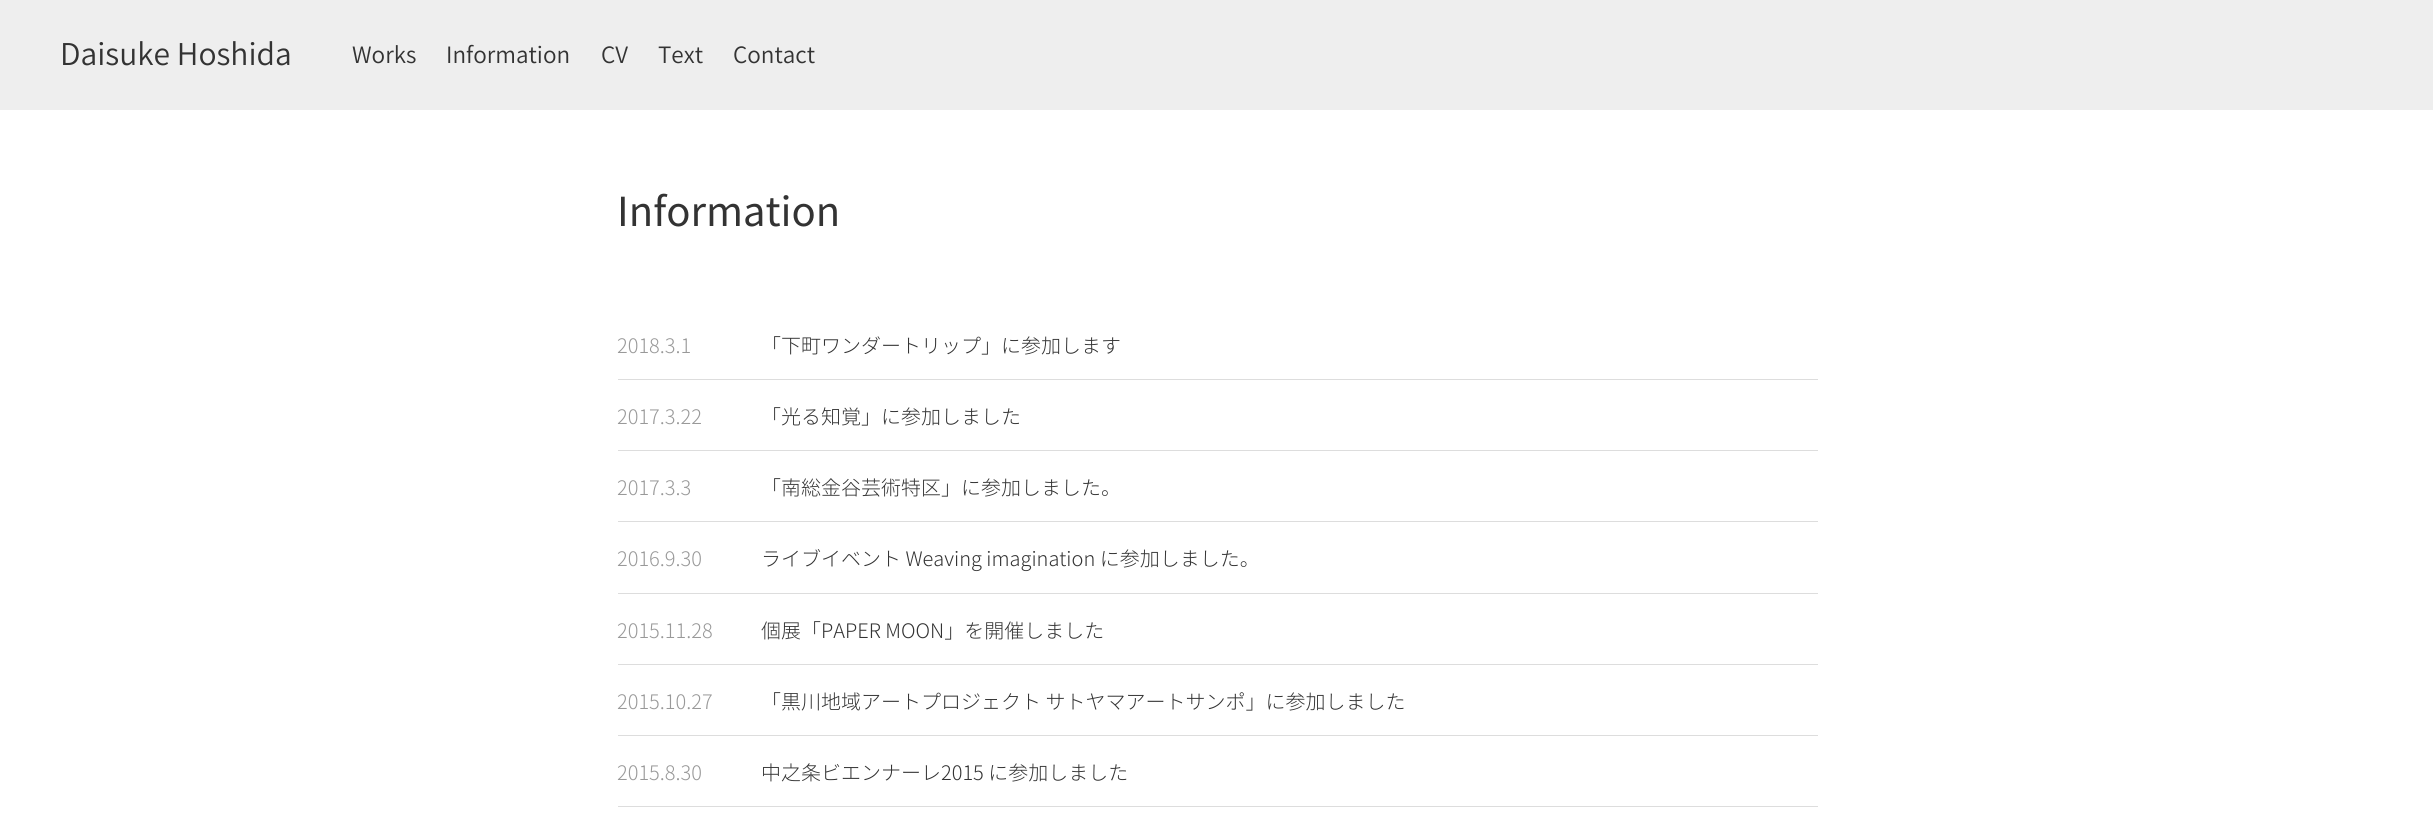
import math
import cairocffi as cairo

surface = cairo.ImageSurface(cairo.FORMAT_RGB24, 2433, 832)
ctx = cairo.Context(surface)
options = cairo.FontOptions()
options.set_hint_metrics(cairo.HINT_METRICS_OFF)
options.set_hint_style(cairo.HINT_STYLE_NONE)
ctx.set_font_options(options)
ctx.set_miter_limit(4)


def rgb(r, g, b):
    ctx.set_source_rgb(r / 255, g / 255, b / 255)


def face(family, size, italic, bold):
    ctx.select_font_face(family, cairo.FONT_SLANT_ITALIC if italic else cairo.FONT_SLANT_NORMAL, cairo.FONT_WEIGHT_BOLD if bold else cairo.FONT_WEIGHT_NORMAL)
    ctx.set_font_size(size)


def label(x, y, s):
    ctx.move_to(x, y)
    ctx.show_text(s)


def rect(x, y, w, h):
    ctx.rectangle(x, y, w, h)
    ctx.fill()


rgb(255, 255, 255)
ctx.paint()
rgb(238, 238, 238)
rect(0, 0, 2433, 110)
face('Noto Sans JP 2 Light', 30, 0, 0)
rgb(51, 51, 51)
label(60, 65, 'Daisuke Hoshida')
face('Noto Sans JP 2 Light', 22.5, 0, 0)
label(352, 63, 'Works')
label(446, 63, 'Information')
label(601, 63, 'CV')
label(658, 63, 'Text')
label(733, 63, 'Contact')
face('Noto Sans JP', 40, 0, 0)
label(617, 226, 'Information')
rgb(221, 221, 221)
rect(618, 379, 1200, 1)
face('Noto Sans JP Light', 20, 0, 0)
rgb(153, 153, 153)
label(617, 353, '2018.3.1')
rgb(51, 51, 51)
label(761, 353, '「下町ワンダートリップ」に参加します')
rgb(221, 221, 221)
rect(618, 450, 1200, 1)
rgb(153, 153, 153)
label(617, 424, '2017.3.22')
rgb(51, 51, 51)
label(761, 424, '「光る知覚」に参加しました')
rgb(221, 221, 221)
rect(618, 521, 1200, 1)
rgb(153, 153, 153)
label(617, 495, '2017.3.3')
rgb(51, 51, 51)
label(761, 495, '「南総金谷芸術特区」に参加しました。')
rgb(221, 221, 221)
rect(618, 593, 1200, 1)
rgb(153, 153, 153)
label(617, 566, '2016.9.30')
rgb(51, 51, 51)
label(761, 566, 'ライブイベント Weaving imagination に参加しました。')
rgb(221, 221, 221)
rect(618, 664, 1200, 1)
rgb(153, 153, 153)
label(617, 638, '2015.11.28')
rgb(51, 51, 51)
label(761, 638, '個展「PAPER MOON」を開催しました')
rgb(221, 221, 221)
rect(618, 735, 1200, 1)
rgb(153, 153, 153)
label(617, 709, '2015.10.27')
rgb(51, 51, 51)
label(761, 709, '「黒川地域アートプロジェクト サトヤマアートサンポ」に参加しました')
rgb(221, 221, 221)
rect(618, 806, 1200, 1)
rgb(153, 153, 153)
label(617, 780, '2015.8.30')
rgb(51, 51, 51)
label(761, 780, '中之条ビエンナーレ2015 に参加しました')
surface.write_to_png('render.png')
